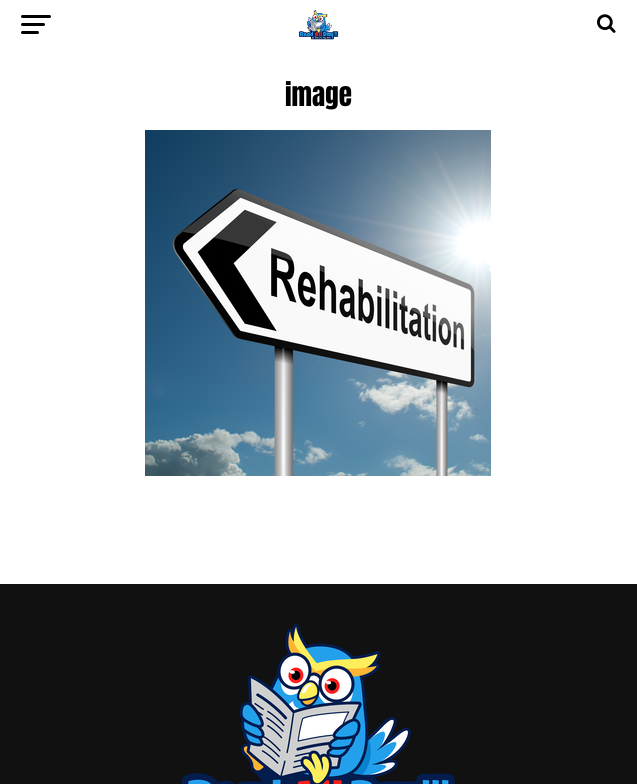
import math
import cairocffi as cairo

surface = cairo.ImageSurface(cairo.FORMAT_RGB24, 637, 784)
ctx = cairo.Context(surface)
options = cairo.FontOptions()
options.set_hint_metrics(cairo.HINT_METRICS_OFF)
options.set_hint_style(cairo.HINT_STYLE_NONE)
ctx.set_font_options(options)
ctx.set_miter_limit(4)


def rgb(r, g, b):
    ctx.set_source_rgb(r / 255, g / 255, b / 255)


def face(family, size, italic, bold):
    ctx.select_font_face(family, cairo.FONT_SLANT_ITALIC if italic else cairo.FONT_SLANT_NORMAL, cairo.FONT_WEIGHT_BOLD if bold else cairo.FONT_WEIGHT_NORMAL)
    ctx.set_font_size(size)


def label(x, y, s):
    ctx.move_to(x, y)
    ctx.show_text(s)


def rect(x, y, w, h):
    ctx.rectangle(x, y, w, h)
    ctx.fill()


def rrect(x, y, w, h, r):
    ctx.new_sub_path()
    for i, (u, v) in enumerate([(x + w - r, y + h - r), (x + r, y + h - r), (x + r, y + r), (x + w - r, y + r)]):
        ctx.arc(u, v, r, i * math.pi / 2, (i + 1) * math.pi / 2)
    ctx.close_path()


def image(path, x, y, w, h):
    ctx.save()
    ctx.set_source_surface(cairo.ImageSurface.create_from_png(path), x, y)
    ctx.rectangle(x, y, w, h)
    ctx.fill()
    ctx.restore()


rgb(255, 255, 255)
ctx.paint()
rgb(0, 0, 0)
rrect(21, 15, 30, 3, 1.5)
ctx.fill()
rrect(21, 23, 24, 3, 1.5)
ctx.fill()
rrect(21, 31, 18, 3, 1.5)
ctx.fill()
image('image0.png', 298, 10, 41, 30)
image('image1.png', 597, 14, 19, 19)
face('Anton', 27, 0, 0)
label(285, 106, 'image')
image('image2.png', 145, 130, 346, 346)
rgb(17, 17, 17)
rect(0, 584, 637, 200)
image('image3.png', 181, 624, 274, 160)
surface.write_to_png('render.png')
